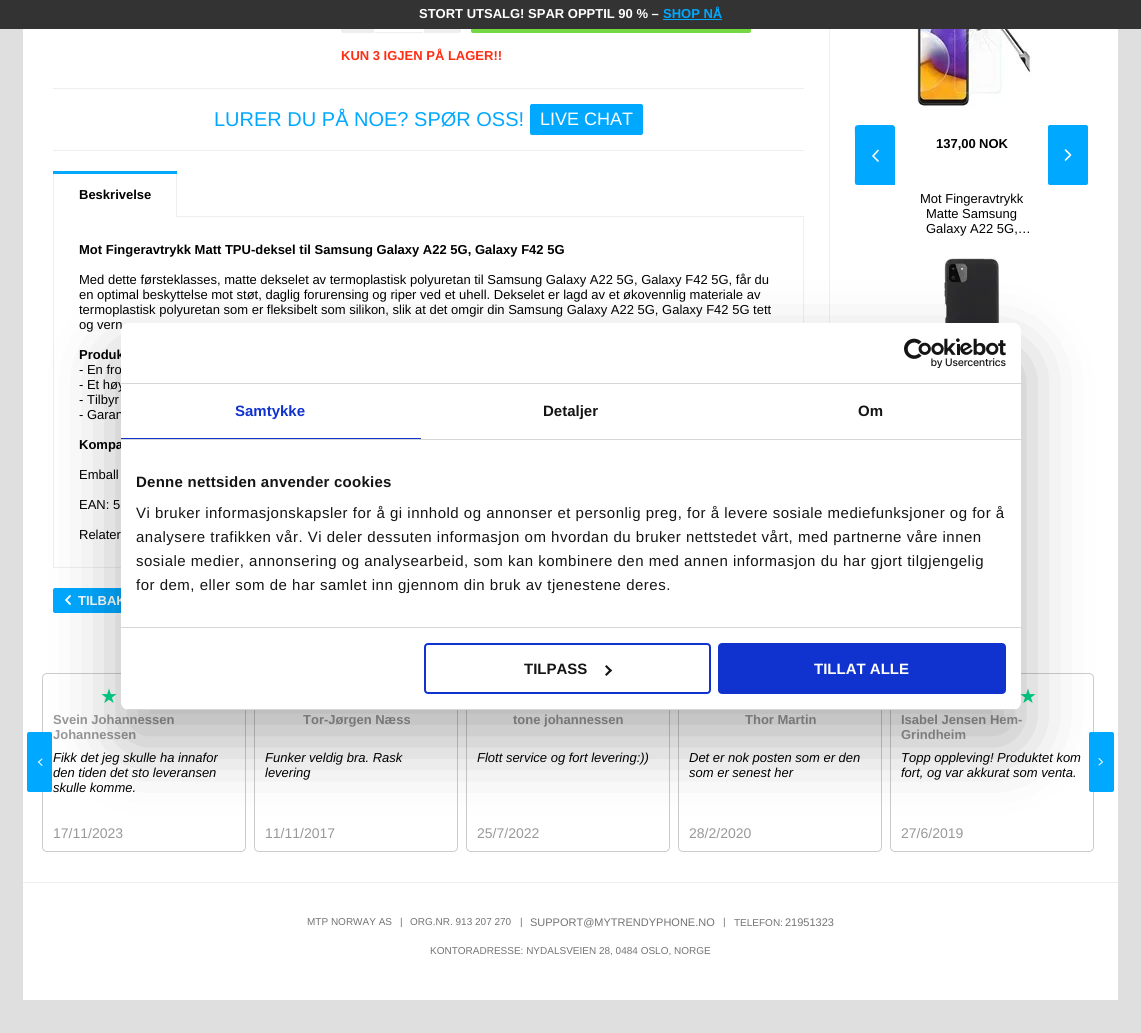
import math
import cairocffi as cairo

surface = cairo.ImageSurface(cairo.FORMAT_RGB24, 1141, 1033)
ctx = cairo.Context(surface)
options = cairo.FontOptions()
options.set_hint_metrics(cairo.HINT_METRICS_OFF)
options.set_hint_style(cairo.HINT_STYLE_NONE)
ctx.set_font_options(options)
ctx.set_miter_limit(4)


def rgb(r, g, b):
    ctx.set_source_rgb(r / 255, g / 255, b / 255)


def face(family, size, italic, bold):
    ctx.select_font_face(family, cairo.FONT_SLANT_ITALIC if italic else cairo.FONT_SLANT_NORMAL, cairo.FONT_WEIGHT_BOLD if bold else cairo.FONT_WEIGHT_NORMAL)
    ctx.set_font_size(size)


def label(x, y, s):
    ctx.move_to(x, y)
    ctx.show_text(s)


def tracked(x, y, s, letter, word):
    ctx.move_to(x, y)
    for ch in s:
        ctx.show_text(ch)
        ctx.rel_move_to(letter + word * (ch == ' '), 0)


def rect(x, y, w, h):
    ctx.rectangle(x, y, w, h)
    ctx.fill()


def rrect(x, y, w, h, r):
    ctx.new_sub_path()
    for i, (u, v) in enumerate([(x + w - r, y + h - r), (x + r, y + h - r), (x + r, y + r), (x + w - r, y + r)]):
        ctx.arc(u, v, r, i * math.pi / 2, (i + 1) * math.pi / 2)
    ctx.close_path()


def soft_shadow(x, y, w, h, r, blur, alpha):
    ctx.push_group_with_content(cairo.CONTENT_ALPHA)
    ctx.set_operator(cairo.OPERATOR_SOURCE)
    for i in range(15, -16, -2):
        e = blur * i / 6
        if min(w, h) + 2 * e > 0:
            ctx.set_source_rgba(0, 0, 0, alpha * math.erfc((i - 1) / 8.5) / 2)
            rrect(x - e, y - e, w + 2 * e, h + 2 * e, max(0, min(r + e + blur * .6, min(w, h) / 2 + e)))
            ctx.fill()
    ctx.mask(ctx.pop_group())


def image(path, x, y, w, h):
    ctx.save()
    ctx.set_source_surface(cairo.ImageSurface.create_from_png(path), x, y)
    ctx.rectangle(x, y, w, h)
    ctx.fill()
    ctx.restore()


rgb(223, 223, 223)
ctx.paint()
rgb(255, 255, 255)
rect(23, 29, 1095, 853)
rgb(238, 238, 238)
ctx.new_path()
ctx.move_to(343, -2)
ctx.line_to(374, -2)
ctx.line_to(374, 33)
ctx.line_to(343, 33)
ctx.curve_to(342, 33, 341, 32, 341, 31)
ctx.line_to(341, 0)
ctx.curve_to(341, -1, 342, -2, 343, -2)
ctx.close_path()
ctx.fill()
ctx.new_path()
ctx.move_to(424, -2)
ctx.line_to(459, -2)
ctx.curve_to(460, -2, 461, -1, 461, 0)
ctx.line_to(461, 31)
ctx.curve_to(461, 32, 460, 33, 459, 33)
ctx.line_to(424, 33)
ctx.close_path()
ctx.fill()
rgb(115, 216, 65)
rrect(471, -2, 280, 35, 2)
ctx.fill()
rgb(51, 51, 51)
rect(0, 0, 1141, 29)
face('Liberation Sans', 13, 0, 1)
rgb(255, 255, 255)
label(419, 18, 'STORT UTSALG! SPAR OPPTIL 90 % –')
rgb(0, 168, 255)
label(663, 18, 'SHOP NÅ')
rect(663, 19, 59, 1)
rgb(238, 238, 238)
rect(375, 32, 48, 1)
rgb(255, 45, 18)
label(341, 60, 'KUN 3 IGJEN PÅ LAGER!!')
rgb(238, 238, 238)
rect(53, 88, 751, 1)
rect(53, 150, 751, 1)
face('Liberation Sans', 20, 0, 0)
rgb(0, 168, 255)
label(214, 126, 'LURER DU PÅ NOE? SPØR OSS!')
rrect(530, 104, 113, 31, 2)
ctx.fill()
face('Liberation Sans', 18, 0, 0)
rgb(255, 255, 255)
label(540, 125, 'LIVE CHAT')
ctx.rectangle(53.5, 216.5, 750, 351)
rgb(238, 238, 238)
ctx.set_line_width(1)
ctx.stroke()
rect(176, 171, 1, 46)
rect(53, 171, 1, 46)
rgb(255, 255, 255)
rect(54, 216, 122, 1)
rgb(0, 168, 255)
rect(53, 171, 124, 3)
face('Liberation Sans', 13, 0, 1)
rgb(0, 0, 0)
label(79, 199, 'Beskrivelse')
label(79, 254, 'Mot Fingeravtrykk Matt TPU-deksel til Samsung Galaxy A22 5G, Galaxy F42 5G')
face('Liberation Sans', 13, 0, 0)
label(79, 284, 'Med dette førsteklasses, matte dekselet av termoplastisk polyuretan til Samsung Galaxy A22 5G, Galaxy F42 5G, får du')
label(79, 299, 'en optimal beskyttelse mot støt, daglig forurensing og riper ved et uhell. Dekselet er lagd av et økovennlig materiale av')
label(79, 314, 'termoplastisk polyuretan som er fleksibelt som silikon, slik at det omgir din Samsung Galaxy A22 5G, Galaxy F42 5G tett')
label(79, 329, 'og vern')
face('Liberation Sans', 13, 0, 1)
label(79, 359, 'Produk')
face('Liberation Sans', 13, 0, 0)
label(79, 374, '- En fro')
label(79, 389, '- Et høy')
label(79, 404, '- Tilbyr')
label(79, 419, '- Garan')
face('Liberation Sans', 13, 0, 1)
label(79, 449, 'Kompa')
face('Liberation Sans', 13, 0, 0)
label(79, 479, 'Emball')
label(79, 509, 'EAN: 5')
label(79, 539, 'Relater')
rgb(0, 168, 255)
rrect(53, 588, 91, 25, 2)
ctx.fill()
image('image0.png', 65, 595, 6, 10)
face('Liberation Sans', 13, 0, 1)
rgb(255, 255, 255)
label(78, 605, 'TILBAK')
rgb(238, 238, 238)
rect(829, 29, 1, 294)
rgb(0, 168, 255)
ctx.new_path()
ctx.move_to(893, 185)
ctx.line_to(863, 185)
ctx.curve_to(853, 185, 855, 186, 855, 174)
ctx.line_to(855, 137)
ctx.curve_to(855, 125, 853, 125, 863, 125)
ctx.line_to(893, 125)
ctx.line_to(895, 127)
ctx.line_to(895, 185)
ctx.close_path()
ctx.fill()
ctx.new_path()
ctx.move_to(878, 150.5)
ctx.line_to(873, 156)
ctx.line_to(878, 161)
rgb(255, 255, 255)
ctx.set_line_width(1.6)
ctx.set_line_cap(cairo.LINE_CAP_ROUND)
ctx.set_line_join(cairo.LINE_JOIN_ROUND)
ctx.stroke()
image('image1.png', 916, 29, 116, 79)
rgb(0, 0, 0)
label(936, 148, '137,00')
label(979, 148, 'NOK')
face('Liberation Sans', 13, 0, 0)
label(920, 203, 'Mot Fingeravtrykk')
label(926, 218, 'Matte Samsung')
label(926, 233, 'Galaxy A22 5G,…')
image('image2.png', 944, 257, 56, 66)
rgb(0, 168, 255)
rrect(1048, 125, 40, 60, 2)
ctx.fill()
ctx.new_path()
ctx.move_to(1065.5, 160)
ctx.line_to(1070.5, 155)
ctx.line_to(1065.5, 150)
rgb(255, 255, 255)
ctx.stroke()
rrect(42.5, 673.5, 203, 178, 4.5)
rgb(204, 204, 204)
ctx.set_line_width(1)
ctx.set_line_cap(cairo.LINE_CAP_BUTT)
ctx.set_line_join(cairo.LINE_JOIN_MITER)
ctx.stroke()
rgb(0, 168, 255)
ctx.new_path()
ctx.move_to(50, 792)
ctx.line_to(29, 792)
ctx.curve_to(28, 792, 27, 791, 27, 790)
ctx.line_to(27, 734)
ctx.curve_to(27, 733, 28, 732, 29, 732)
ctx.line_to(50, 732)
ctx.curve_to(52, 732, 52, 733, 52, 734)
ctx.line_to(52, 790)
ctx.curve_to(52, 791, 52, 792, 50, 792)
ctx.close_path()
ctx.fill()
ctx.new_path()
ctx.move_to(42, 759)
ctx.line_to(38.5, 762)
ctx.line_to(42, 765.5)
rgb(255, 255, 255)
ctx.set_line_cap(cairo.LINE_CAP_ROUND)
ctx.set_line_join(cairo.LINE_JOIN_ROUND)
ctx.stroke()
face('DejaVu Sans', 20, 0, 0)
rgb(4, 218, 141)
label(100, 703, '★')
face('Liberation Sans', 13, 0, 1)
rgb(153, 153, 153)
label(53, 724, 'Svein Johannessen')
label(53, 739, 'Johannessen')
face('Liberation Sans', 13, 1, 0)
rgb(0, 0, 0)
label(53, 762, 'Fikk det jeg skulle ha innafor')
label(53, 777, 'den tiden det sto leveransen')
label(53, 792, 'skulle komme.')
face('Liberation Sans', 14, 0, 0)
rgb(153, 153, 153)
label(53, 838, '17/11/2023')
rrect(254.5, 673.5, 203, 178, 4.5)
rgb(204, 204, 204)
ctx.set_line_cap(cairo.LINE_CAP_BUTT)
ctx.set_line_join(cairo.LINE_JOIN_MITER)
ctx.stroke()
face('Liberation Sans', 13, 0, 1)
rgb(153, 153, 153)
label(303, 724, 'Tor-Jørgen Næss')
face('Liberation Sans', 13, 1, 0)
rgb(0, 0, 0)
label(265, 762, 'Funker veldig bra. Rask')
label(265, 777, 'levering')
face('Liberation Sans', 14, 0, 0)
rgb(153, 153, 153)
label(265, 838, '11/11/2017')
rrect(466.5, 673.5, 203, 178, 4.5)
rgb(204, 204, 204)
ctx.stroke()
face('Liberation Sans', 13, 0, 1)
rgb(153, 153, 153)
label(513, 724, 'tone johannessen')
face('Liberation Sans', 13, 1, 0)
rgb(0, 0, 0)
label(477, 762, 'Flott service og fort levering:))')
face('Liberation Sans', 14, 0, 0)
rgb(153, 153, 153)
label(477, 838, '25/7/2022')
rrect(678.5, 673.5, 203, 178, 4.5)
rgb(204, 204, 204)
ctx.stroke()
face('Liberation Sans', 13, 0, 1)
rgb(153, 153, 153)
label(745, 724, 'Thor Martin')
face('Liberation Sans', 13, 1, 0)
rgb(0, 0, 0)
label(689, 762, 'Det er nok posten som er den')
label(689, 777, 'som er senest her')
face('Liberation Sans', 14, 0, 0)
rgb(153, 153, 153)
label(689, 838, '28/2/2020')
rrect(890.5, 673.5, 203, 178, 4.5)
rgb(204, 204, 204)
ctx.stroke()
face('DejaVu Sans', 20, 0, 0)
rgb(4, 218, 141)
label(1019, 703, '★')
face('Liberation Sans', 13, 0, 1)
rgb(153, 153, 153)
label(901, 724, 'Isabel Jensen Hem-')
label(901, 739, 'Grindheim')
face('Liberation Sans', 13, 1, 0)
rgb(0, 0, 0)
label(901, 762, 'Topp oppleving! Produktet kom')
label(901, 777, 'fort, og var akkurat som venta.')
face('Liberation Sans', 14, 0, 0)
rgb(153, 153, 153)
label(901, 838, '27/6/2019')
rgb(0, 168, 255)
rrect(1089, 732, 25, 60, 2)
ctx.fill()
ctx.new_path()
ctx.move_to(1099, 765)
ctx.line_to(1102.5, 762)
ctx.line_to(1099, 758.5)
rgb(255, 255, 255)
ctx.set_line_cap(cairo.LINE_CAP_ROUND)
ctx.set_line_join(cairo.LINE_JOIN_ROUND)
ctx.stroke()
rect(23, 883, 1095, 117)
rgb(238, 238, 238)
rect(23, 882, 1095, 1)
face('Liberation Sans', 10, 0, 0)
rgb(115, 115, 115)
label(307, 925, 'MTP NORWAY AS')
label(400, 925, '|')
label(410, 925, 'ORG.NR. 913 207 270')
label(520, 925, '|')
face('Liberation Sans', 11, 0, 0)
label(530, 926, 'SUPPORT@MYTRENDYPHONE.NO')
face('Liberation Sans', 10, 0, 0)
label(723, 925, '|')
label(734, 926, 'TELEFON:')
face('Liberation Sans', 11, 0, 0)
label(785, 926, '21951323')
face('Liberation Sans', 10, 0, 0)
label(430, 954, 'KONTORADRESSE: NYDALSVEIEN 28, 0484 OSLO, NORGE')
rgb(0, 0, 0)
soft_shadow(121, 355, 900, 387, 8, 34, 0.3)
rgb(255, 255, 255)
rrect(121, 323, 900, 387, 8)
ctx.fill()
rgb(214, 214, 214)
rect(121, 383, 900, 1)
image('image3.png', 904, 338, 102, 30)
rect(121, 439, 900, 1)
rgb(16, 50, 207)
rect(121, 438, 300, 1)
face('Liberation Sans', 15, 0, 1)
label(235, 416, 'Samtykke')
rgb(20, 20, 20)
label(543, 416, 'Detaljer')
label(858, 416, 'Om')
rgb(214, 214, 214)
rect(121, 627, 900, 1)
rgb(20, 20, 20)
tracked(136, 487, 'Denne nettsiden anvender cookies', 0.25, 0)
face('Liberation Sans', 15, 0, 0)
tracked(136, 518, 'Vi bruker informasjonskapsler for å gi innhold og annonser et personlig preg, for å levere sosiale mediefunksjoner og for å', 0.5, 0)
tracked(136, 542, 'analysere trafikken vår. Vi deler dessuten informasjon om hvordan du bruker nettstedet vårt, med partnerne våre innen', 0.5, 0)
tracked(136, 566, 'sosiale medier, annonsering og analysearbeid, som kan kombinere den med annen informasjon du har gjort tilgjengelig', 0.5, 0)
tracked(136, 590, 'for dem, eller som de har samlet inn gjennom din bruk av tjenestene deres.', 0.5, 0)
ctx.save()
rrect(121, 323, 900, 387, 8)
ctx.clip()
rgb(214, 214, 214)
rect(121, 709, 900, 1)
ctx.restore()
rrect(425, 644, 285, 49, 3)
rgb(16, 50, 207)
ctx.set_line_width(2)
ctx.set_line_cap(cairo.LINE_CAP_BUTT)
ctx.set_line_join(cairo.LINE_JOIN_MITER)
ctx.stroke()
face('Liberation Sans', 15, 0, 1)
rgb(20, 20, 20)
label(524, 674, 'TILPASS')
ctx.new_path()
ctx.move_to(606.5, 665)
ctx.line_to(612, 670.5)
ctx.line_to(610.5, 672)
ctx.line_to(605, 666.5)
ctx.close_path()
ctx.fill()
ctx.new_path()
ctx.move_to(610.5, 669)
ctx.line_to(612, 670.5)
ctx.line_to(606.5, 676)
ctx.line_to(605, 674.5)
ctx.close_path()
ctx.fill()
rgb(16, 50, 207)
rrect(719, 644, 286, 49, 3)
ctx.fill_preserve()
ctx.stroke()
rgb(255, 255, 255)
label(814, 674, 'TILLAT ALLE')
surface.write_to_png('render.png')
